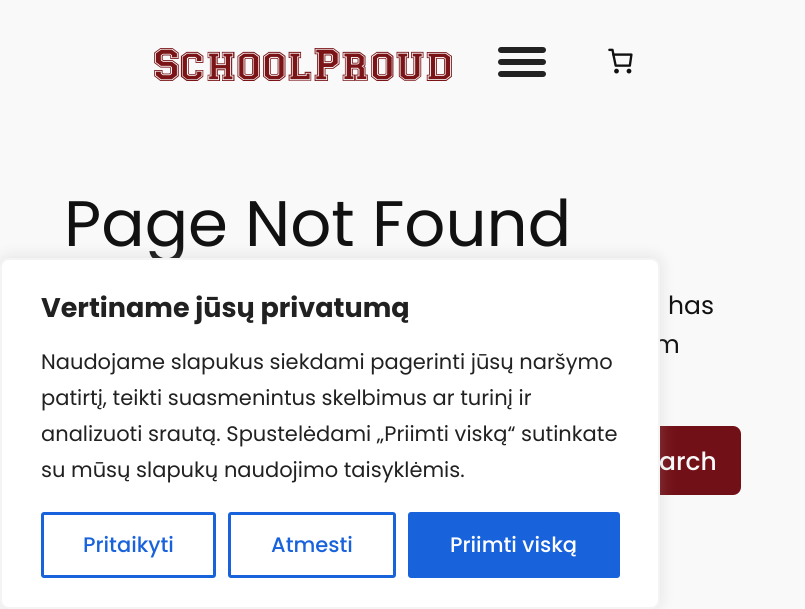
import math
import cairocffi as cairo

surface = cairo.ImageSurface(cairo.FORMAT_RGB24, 805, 609)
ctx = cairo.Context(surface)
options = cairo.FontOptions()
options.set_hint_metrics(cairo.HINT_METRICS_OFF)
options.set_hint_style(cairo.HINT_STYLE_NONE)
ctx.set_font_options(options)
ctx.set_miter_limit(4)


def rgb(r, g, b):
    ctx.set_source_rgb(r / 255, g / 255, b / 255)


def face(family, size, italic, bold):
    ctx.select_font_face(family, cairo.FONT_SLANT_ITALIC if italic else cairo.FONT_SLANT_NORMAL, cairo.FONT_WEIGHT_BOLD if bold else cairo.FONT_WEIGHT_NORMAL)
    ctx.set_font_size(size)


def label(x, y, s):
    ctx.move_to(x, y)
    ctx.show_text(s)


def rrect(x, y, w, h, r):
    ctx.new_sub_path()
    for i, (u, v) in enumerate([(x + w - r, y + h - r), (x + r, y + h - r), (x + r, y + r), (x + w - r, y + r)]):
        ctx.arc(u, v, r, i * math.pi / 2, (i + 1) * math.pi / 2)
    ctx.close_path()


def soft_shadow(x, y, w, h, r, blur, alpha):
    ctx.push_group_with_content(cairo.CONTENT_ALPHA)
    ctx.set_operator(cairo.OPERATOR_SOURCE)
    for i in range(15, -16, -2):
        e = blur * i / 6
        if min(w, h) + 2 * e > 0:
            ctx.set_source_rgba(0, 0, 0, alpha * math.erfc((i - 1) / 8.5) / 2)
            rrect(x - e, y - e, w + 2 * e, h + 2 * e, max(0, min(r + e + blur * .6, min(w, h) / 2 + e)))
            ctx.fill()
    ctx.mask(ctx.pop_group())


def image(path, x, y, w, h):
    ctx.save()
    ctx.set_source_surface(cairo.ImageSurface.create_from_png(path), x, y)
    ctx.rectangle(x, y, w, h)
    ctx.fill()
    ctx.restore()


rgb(249, 249, 249)
ctx.paint()
image('image0.png', 154, 48, 298, 33)
rgb(34, 34, 34)
rrect(498, 47, 48, 6, 3)
ctx.fill()
rrect(498, 59, 48, 6, 3)
ctx.fill()
rrect(498, 71, 48, 6, 3)
ctx.fill()
image('image1.png', 608, 48, 25, 26)
face('Poppins', 64.25, 0, 0)
rgb(17, 17, 17)
label(64, 246, 'Page Not Found')
face('Poppins', 25, 0, 0)
label(668, 314, 'has')
label(654, 353, 'm')
rgb(114, 16, 23)
rrect(605, 426, 136, 69, 8)
ctx.fill()
face('Poppins Medium', 25, 0, 0)
rgb(249, 249, 249)
label(659, 470, 'arch')
rgb(172, 171, 171)
soft_shadow(0, 257, 660, 351, 9, 7.5, 0.3)
rgb(255, 255, 255)
rrect(1, 259, 658, 349, 8)
ctx.fill_preserve()
rgb(244, 244, 244)
ctx.stroke()
face('Poppins', 27, 0, 1)
rgb(33, 33, 33)
label(41, 317, 'Vertiname jūsų privatumą')
face('Poppins', 21, 0, 0)
label(41, 369, 'Naudojame slapukus siekdami pagerinti jūsų naršymo')
label(41, 405, 'patirtį, teikti suasmenintus skelbimus ar turinį ir')
label(41, 441, 'analizuoti srautą. Spustelėdami „Priimti viską“ sutinkate')
label(41, 477, 'su mūsų slapukų naudojimo taisyklėmis.')
rrect(42.5, 513.5, 172, 63, 1.5)
rgb(24, 99, 220)
ctx.set_line_width(3)
ctx.stroke()
face('Poppins Medium', 21, 0, 0)
label(83, 552, 'Pritaikyti')
rrect(229.5, 513.5, 165, 63, 1.5)
ctx.stroke()
label(271, 552, 'Atmesti')
rrect(409.5, 513.5, 209, 63, 1.5)
ctx.fill_preserve()
ctx.stroke()
rgb(255, 255, 255)
label(450, 552, 'Priimti viską')
surface.write_to_png('render.png')
